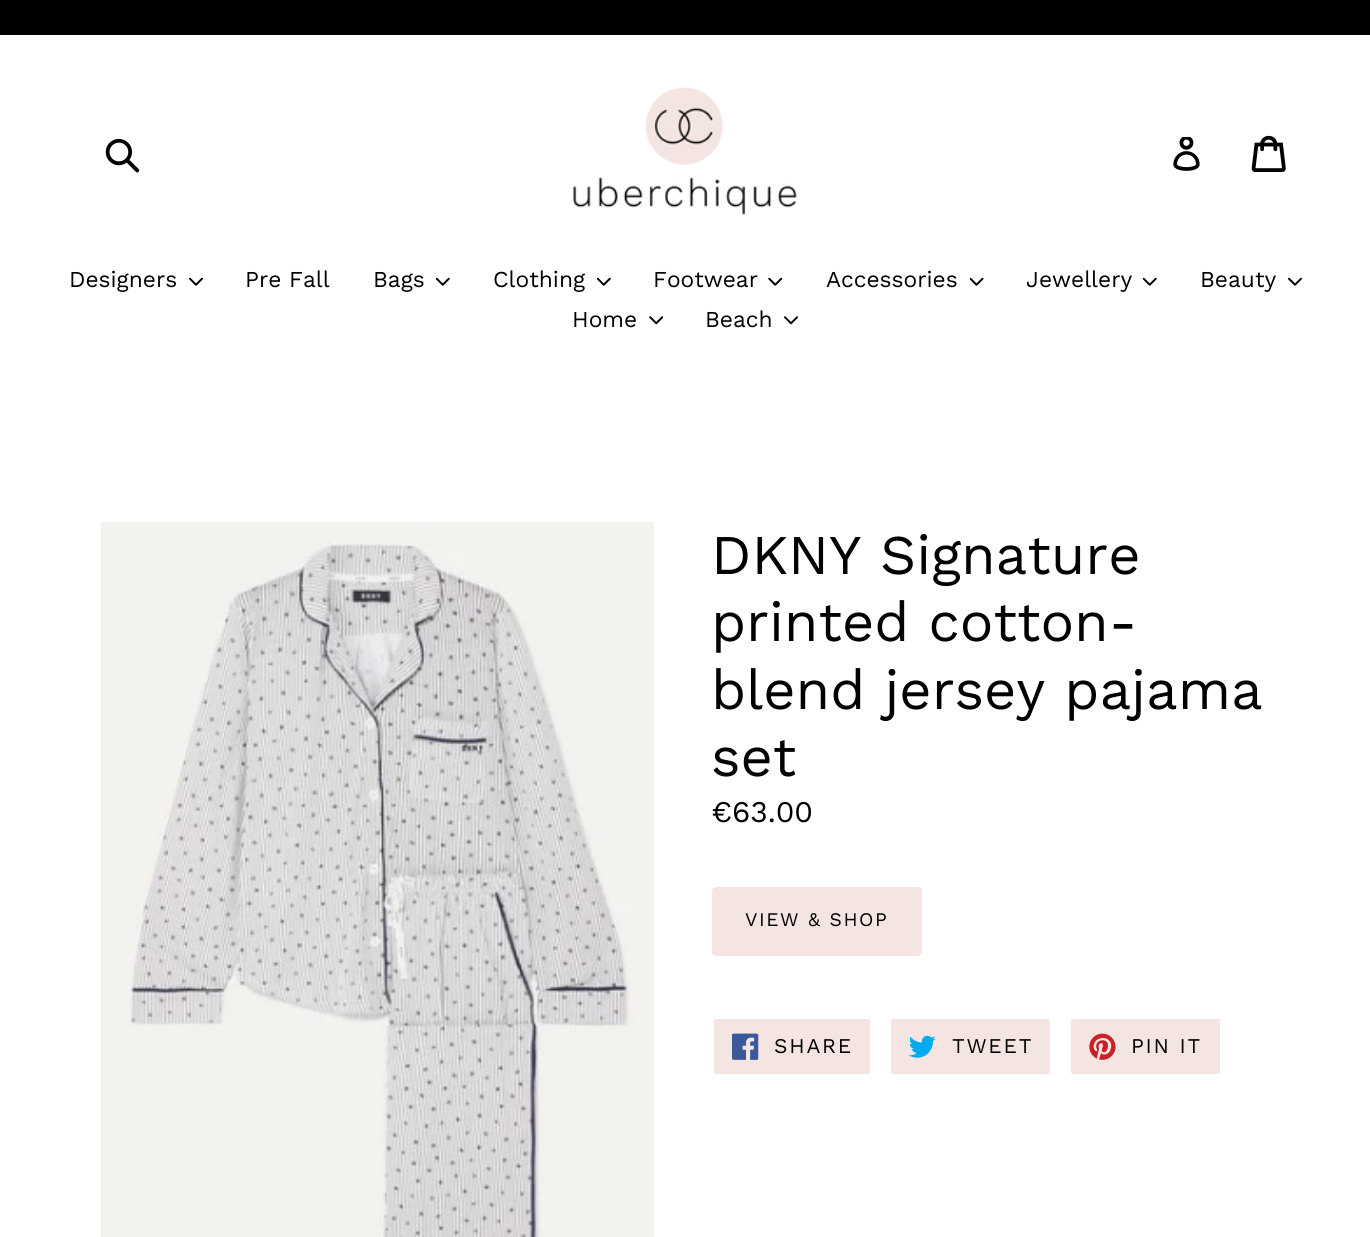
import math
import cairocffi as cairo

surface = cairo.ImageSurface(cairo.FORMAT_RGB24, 1370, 1237)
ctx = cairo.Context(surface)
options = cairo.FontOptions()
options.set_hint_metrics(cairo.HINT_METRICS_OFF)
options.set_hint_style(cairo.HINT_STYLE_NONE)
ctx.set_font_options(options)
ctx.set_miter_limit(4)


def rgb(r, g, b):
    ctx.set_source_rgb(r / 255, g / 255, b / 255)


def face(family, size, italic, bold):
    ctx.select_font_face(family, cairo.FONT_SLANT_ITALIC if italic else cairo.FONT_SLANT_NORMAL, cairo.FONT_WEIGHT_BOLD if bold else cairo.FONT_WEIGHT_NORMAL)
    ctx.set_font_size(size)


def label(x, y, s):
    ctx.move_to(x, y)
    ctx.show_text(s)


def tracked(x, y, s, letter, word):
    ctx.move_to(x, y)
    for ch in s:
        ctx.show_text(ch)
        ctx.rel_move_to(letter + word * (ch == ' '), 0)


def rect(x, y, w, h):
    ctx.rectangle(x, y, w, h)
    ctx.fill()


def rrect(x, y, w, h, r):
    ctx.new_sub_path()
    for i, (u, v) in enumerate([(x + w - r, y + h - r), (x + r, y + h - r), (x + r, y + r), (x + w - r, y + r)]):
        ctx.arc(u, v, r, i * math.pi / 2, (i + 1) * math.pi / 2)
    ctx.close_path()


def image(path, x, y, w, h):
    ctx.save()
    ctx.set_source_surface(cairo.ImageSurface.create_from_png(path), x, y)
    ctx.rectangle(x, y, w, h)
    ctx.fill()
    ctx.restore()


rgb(255, 255, 255)
ctx.paint()
rgb(0, 0, 0)
rect(0, 0, 1370, 35)
image('image0.png', 105, 138, 35, 35)
image('image1.png', 572, 87, 225, 129)
image('image2.png', 1173, 137, 27, 34)
image('image3.png', 1251, 135, 35, 37)
face('Work Sans', 22.75, 0, 0)
label(69, 287, 'Designers')
image('image4.png', 189, 277, 14, 9)
label(245, 287, 'Pre Fall')
label(373, 287, 'Bags')
image('image5.png', 436, 277, 14, 9)
label(493, 287, 'Clothing')
image('image5.png', 597, 277, 14, 9)
label(653, 287, 'Footwear')
image('image6.png', 768, 277, 14, 9)
label(826, 287, 'Accessories')
image('image7.png', 970, 277, 14, 9)
label(1026, 287, 'Jewellery')
image('image5.png', 1143, 277, 14, 9)
label(1200, 287, 'Beauty')
image('image4.png', 1288, 277, 14, 9)
label(572, 327, 'Home')
image('image8.png', 649, 316, 14, 9)
label(705, 327, 'Beach')
image('image9.png', 784, 316, 14, 9)
image('image10.png', 101, 522, 553, 715)
face('Work Sans', 56, 0, 0)
label(711, 574, 'DKNY Signature')
label(711, 641, 'printed cotton-')
label(711, 709, 'blend jersey pajama')
label(711, 776, 'set')
face('Work Sans', 30, 0, 0)
label(711, 822, '€63.00')
rgb(244, 229, 226)
rrect(712, 887, 210, 69, 4)
ctx.fill()
face('Work Sans', 19.25, 0, 0)
rgb(0, 0, 0)
tracked(745, 926, 'VIEW & SHOP', 1.5, 0)
rgb(244, 229, 226)
rrect(713, 1018, 158, 57, 3)
ctx.fill_preserve()
rgb(255, 255, 255)
ctx.stroke()
image('image11.png', 732, 1033, 27, 27)
face('Work Sans', 21, 0, 0)
rgb(0, 0, 0)
tracked(774, 1053, 'SHARE', 1.75, 0)
rgb(244, 229, 226)
rrect(890, 1018, 161, 57, 3)
ctx.fill_preserve()
rgb(255, 255, 255)
ctx.stroke()
image('image12.png', 908, 1035, 28, 23)
rgb(0, 0, 0)
tracked(952, 1053, 'TWEET', 1.75, 0)
rgb(244, 229, 226)
rrect(1070, 1018, 151, 57, 3)
ctx.fill_preserve()
rgb(255, 255, 255)
ctx.stroke()
image('image13.png', 1089, 1033, 27, 27)
rgb(0, 0, 0)
tracked(1131, 1053, 'PIN IT', 1.75, 0)
surface.write_to_png('render.png')
